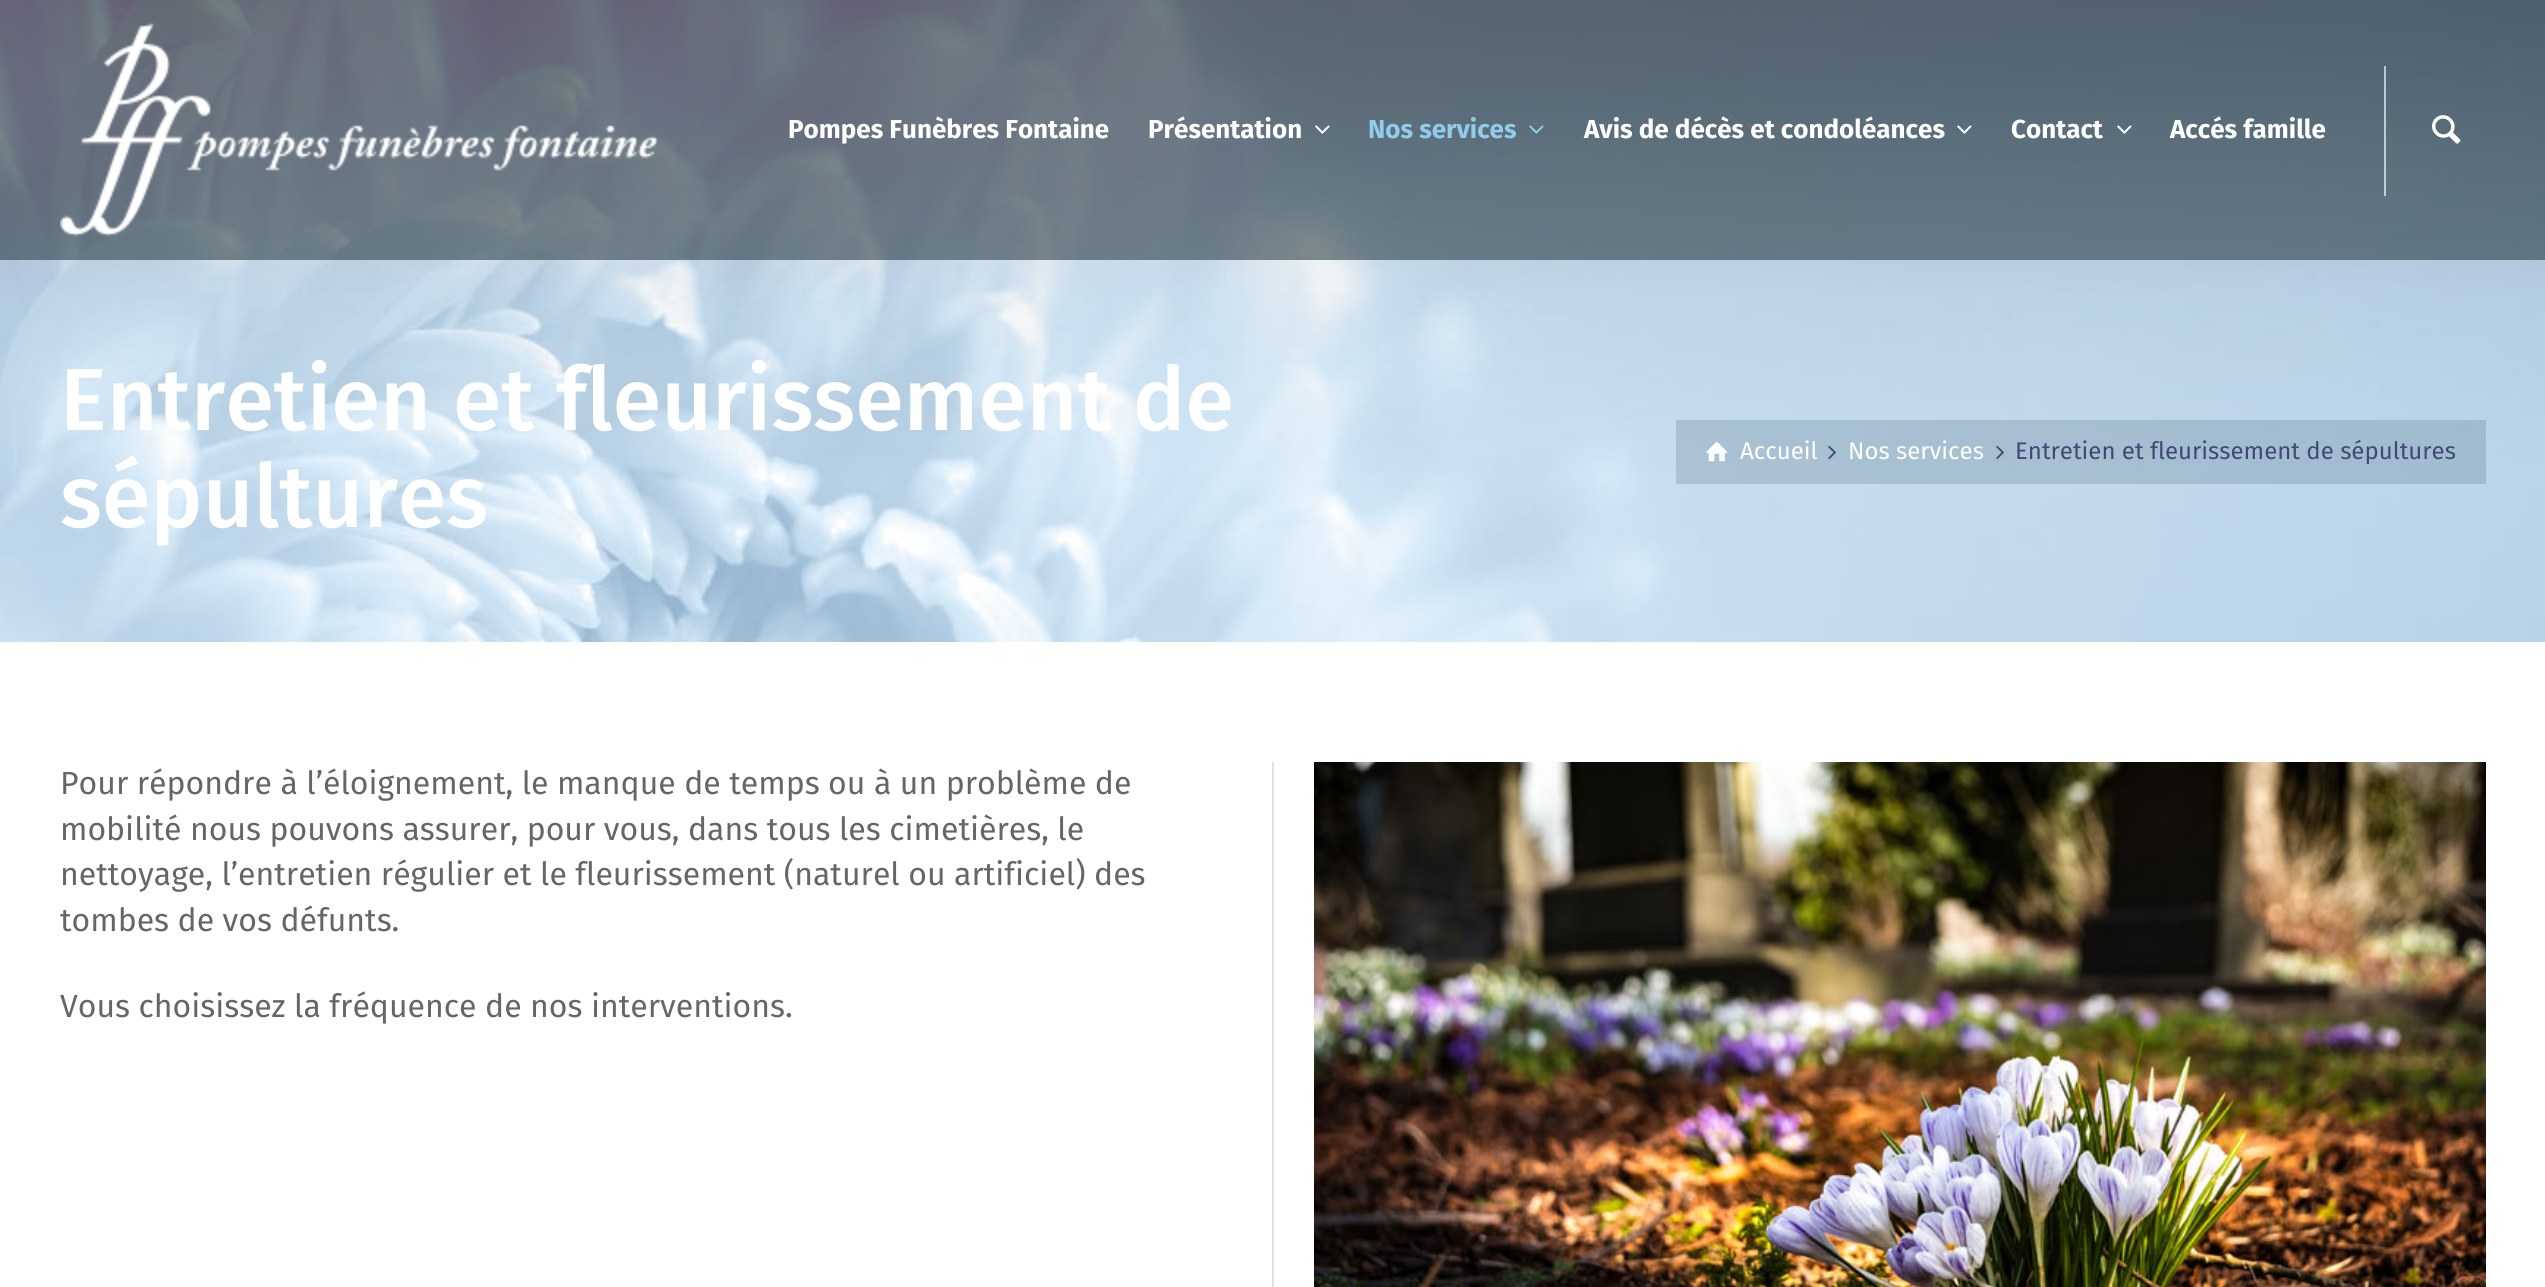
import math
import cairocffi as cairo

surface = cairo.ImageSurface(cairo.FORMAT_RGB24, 2545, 1287)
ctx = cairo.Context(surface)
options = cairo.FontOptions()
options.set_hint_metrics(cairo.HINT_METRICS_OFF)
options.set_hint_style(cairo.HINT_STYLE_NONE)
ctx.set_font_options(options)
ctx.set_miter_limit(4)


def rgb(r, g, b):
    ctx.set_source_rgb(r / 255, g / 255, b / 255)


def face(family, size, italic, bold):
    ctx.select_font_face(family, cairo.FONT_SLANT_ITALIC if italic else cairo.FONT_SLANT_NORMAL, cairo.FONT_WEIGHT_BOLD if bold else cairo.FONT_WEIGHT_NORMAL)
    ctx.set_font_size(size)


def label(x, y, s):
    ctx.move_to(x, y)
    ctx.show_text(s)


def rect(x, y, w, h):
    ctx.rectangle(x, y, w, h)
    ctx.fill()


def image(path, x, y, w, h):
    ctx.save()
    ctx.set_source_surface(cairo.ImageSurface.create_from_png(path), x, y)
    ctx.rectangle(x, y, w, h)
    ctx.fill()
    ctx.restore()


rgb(255, 255, 255)
ctx.paint()
image('image6.png', 0, 0, 2545, 642)
ctx.set_source_rgba(0.114, 0.192, 0.227, 0.55)
rect(0, 0, 2545, 260)
image('image0.png', 60, 23, 599, 214)
face('Fira Sans', 26, 0, 1)
rgb(255, 255, 255)
label(788, 138, 'Pompes Funèbres Fontaine')
label(1148, 138, 'Présentation')
image('image1.png', 1315, 125, 15, 9)
rgb(144, 204, 235)
label(1368, 138, 'Nos services')
image('image2.png', 1529, 125, 15, 9)
rgb(255, 255, 255)
label(1584, 138, 'Avis de décès et condoléances')
image('image3.png', 1957, 125, 15, 9)
label(2011, 138, 'Contact')
image('image4.png', 2117, 125, 15, 9)
label(2170, 138, 'Accés famille')
ctx.set_source_rgba(1, 1, 1, 0.64)
rect(2384, 66, 2, 130)
image('image5.png', 2432, 115, 29, 29)
face('Fira Sans Medium', 88, 0, 0)
rgb(255, 255, 255)
label(60, 430, 'Entretien et fleurissement de')
label(60, 527, 'sépultures')
ctx.set_source_rgba(0.31, 0.424, 0.49, 0.24)
rect(1676, 420, 810, 64)
image('image7.png', 1706, 442, 22, 20)
face('Fira Sans', 24, 0, 0)
rgb(255, 255, 255)
label(1740, 459, 'Accueil')
image('image8.png', 1828, 445, 8, 15)
label(1848, 459, 'Nos services')
image('image9.png', 1996, 445, 8, 15)
rgb(68, 72, 117)
label(2015, 459, 'Entretien et fleurissement de sépultures')
face('Fira Sans', 32, 0, 0)
rgb(102, 102, 102)
label(60, 794, 'Pour répondre à l’éloignement, le manque de temps ou à un problème de')
label(60, 840, 'mobilité nous pouvons assurer, pour vous, dans tous les cimetières, le')
label(60, 885, 'nettoyage, l’entretien régulier et le fleurissement (naturel ou artificiel) des')
label(60, 931, 'tombes de vos défunts.')
label(60, 1017, 'Vous choisissez la fréquence de nos interventions.')
rgb(225, 225, 225)
rect(1272, 762, 2, 525)
image('image10.png', 1314, 762, 1172, 525)
surface.write_to_png('render.png')
